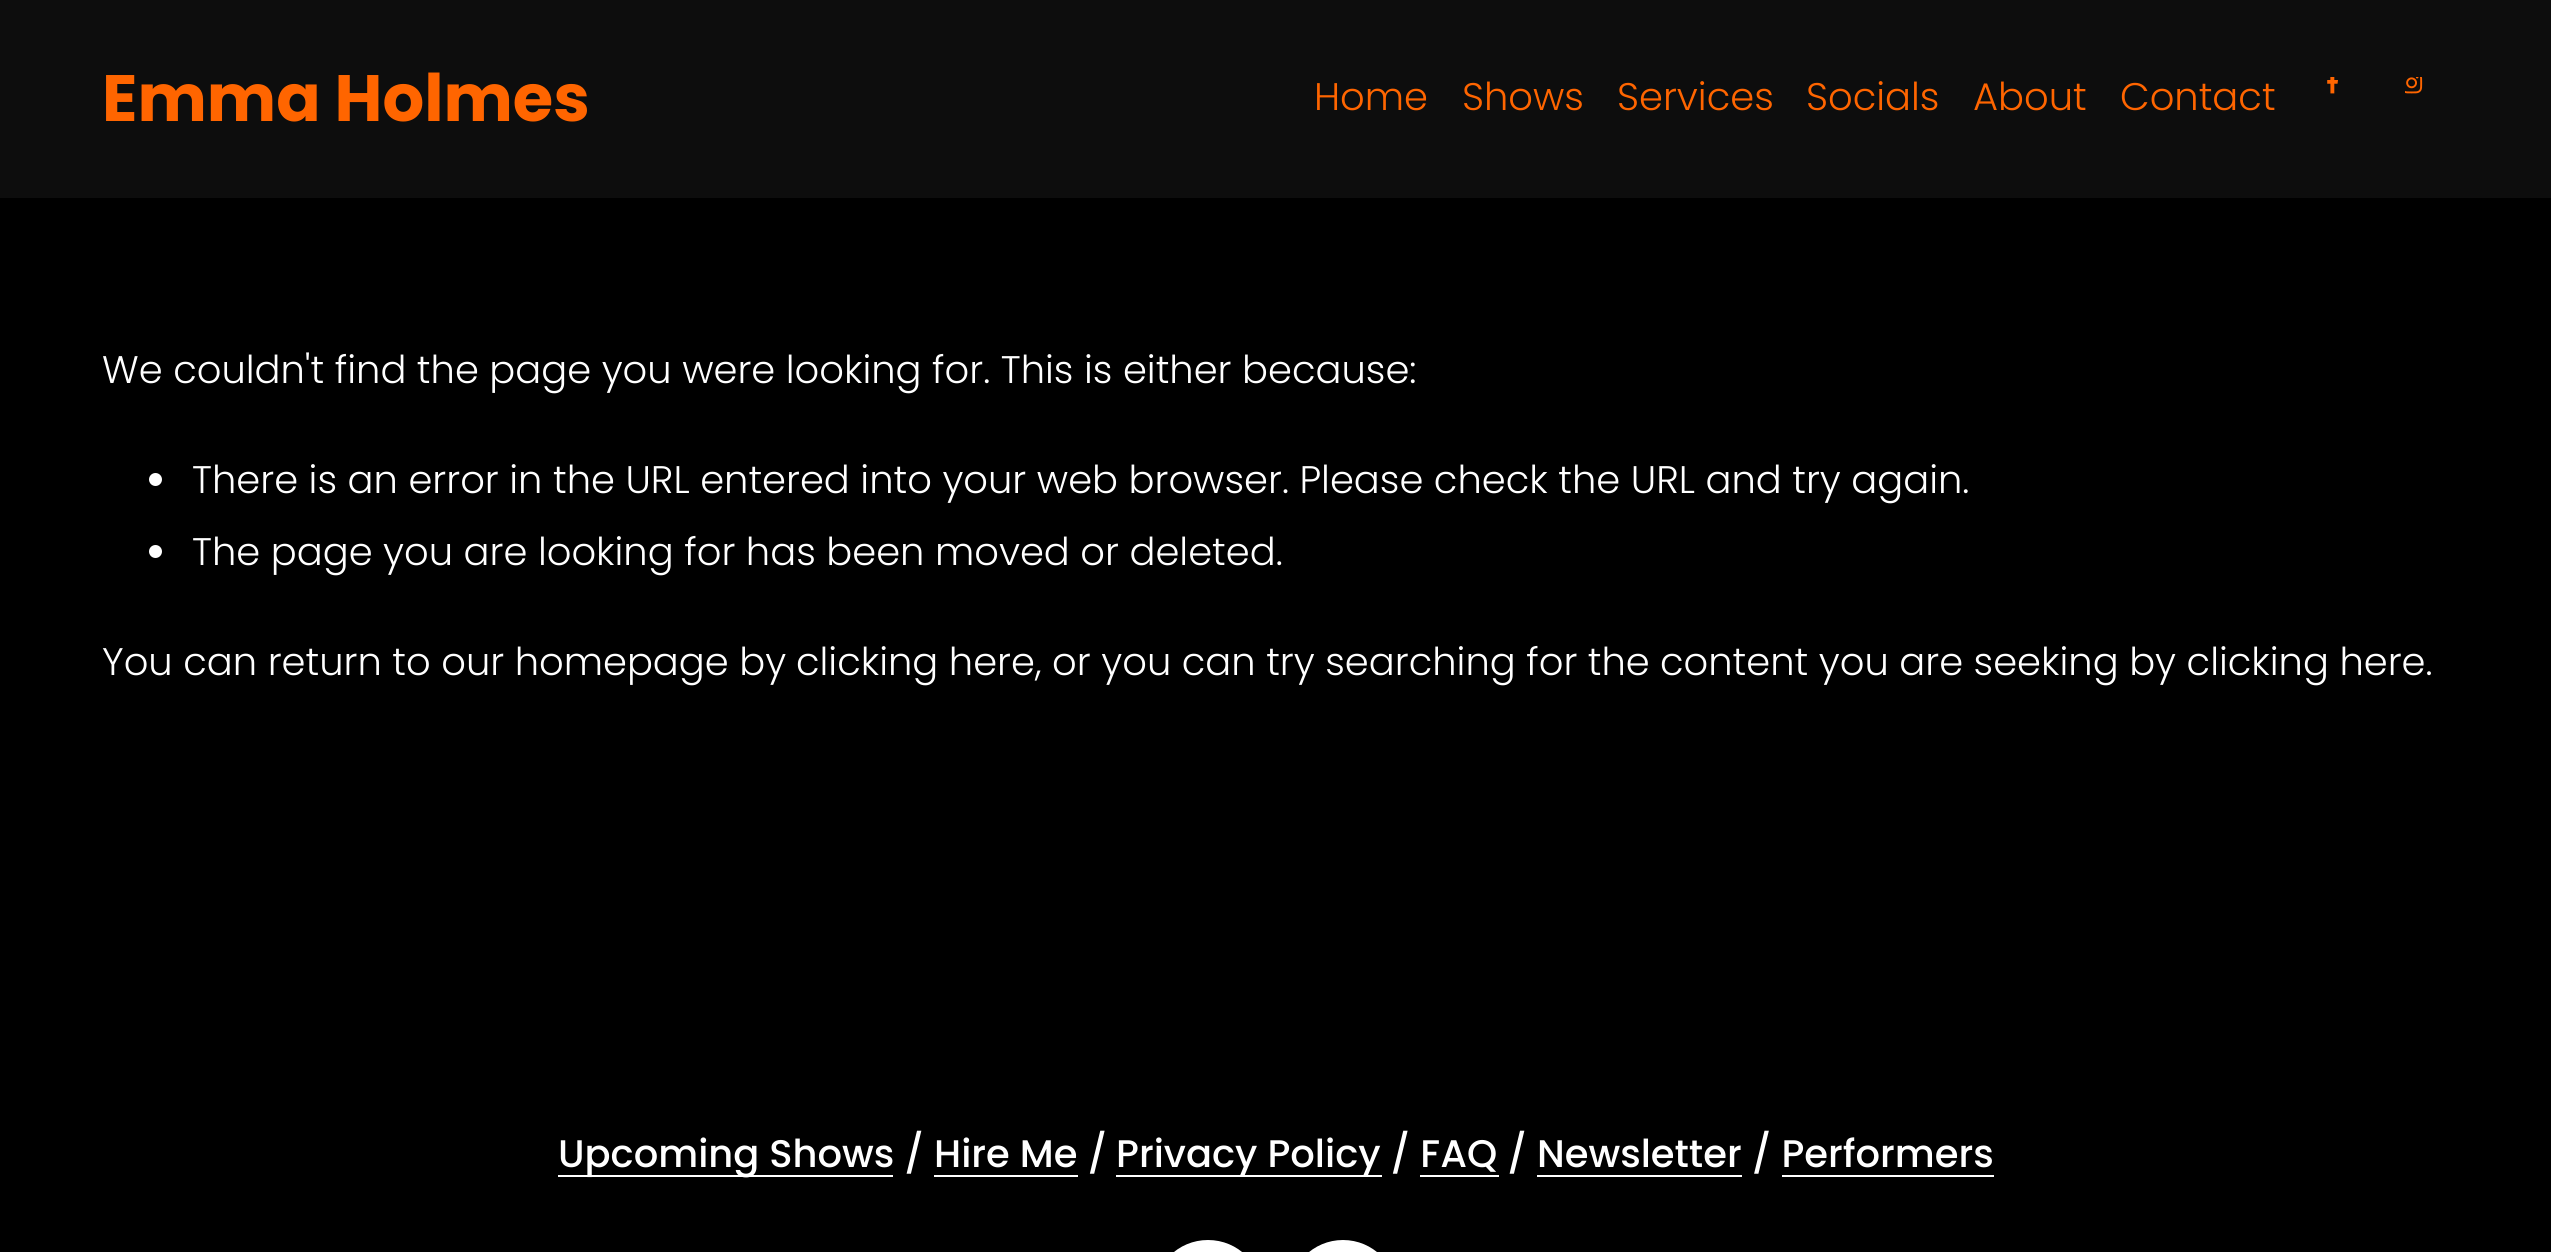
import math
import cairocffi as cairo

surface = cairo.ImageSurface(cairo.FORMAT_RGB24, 2551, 1252)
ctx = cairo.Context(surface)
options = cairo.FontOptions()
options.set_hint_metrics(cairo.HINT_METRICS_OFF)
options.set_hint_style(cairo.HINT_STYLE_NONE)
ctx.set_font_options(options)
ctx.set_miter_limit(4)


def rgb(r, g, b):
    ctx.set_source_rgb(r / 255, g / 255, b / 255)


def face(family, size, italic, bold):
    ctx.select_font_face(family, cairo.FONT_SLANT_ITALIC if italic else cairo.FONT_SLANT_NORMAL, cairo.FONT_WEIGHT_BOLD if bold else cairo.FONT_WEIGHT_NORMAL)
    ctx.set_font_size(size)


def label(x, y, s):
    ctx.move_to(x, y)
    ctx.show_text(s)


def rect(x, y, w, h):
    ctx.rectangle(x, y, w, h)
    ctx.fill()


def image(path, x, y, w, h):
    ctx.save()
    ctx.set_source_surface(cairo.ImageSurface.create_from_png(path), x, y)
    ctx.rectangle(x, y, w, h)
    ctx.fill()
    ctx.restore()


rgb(0, 0, 0)
ctx.paint()
rgb(13, 13, 13)
rect(0, 0, 2551, 198)
face('Poppins', 65.5, 0, 1)
rgb(255, 101, 0)
label(102, 121, 'Emma Holmes')
face('Poppins Light', 38.45, 0, 0)
label(1314, 110, 'Home')
label(1462, 110, 'Shows')
label(1617, 110, 'Services')
label(1806, 110, 'Socials')
label(1973, 110, 'About')
label(2120, 110, 'Contact')
image('image0.png', 2327, 77, 11, 17)
image('image1.png', 2405, 77, 18, 17)
rgb(255, 255, 255)
label(102, 383, 'We couldn\'t find the page you were looking for. This is either because:')
ctx.new_path()
ctx.arc(155.5, 479.5, 6.5, 0, 2 * math.pi)
ctx.fill()
label(192, 493, 'There is an error in the URL entered into your web browser. Please check the URL and try again.')
ctx.new_path()
ctx.arc(155.5, 551.5, 6.5, 0, 2 * math.pi)
ctx.fill()
label(192, 565, 'The page you are looking for has been moved or deleted.')
label(102, 675, 'You can return to our homepage by')
label(796, 675, 'clicking here, or you can try searching for the')
label(1660, 675, 'content you are seeking by clicking here.')
rect(558, 1175, 335, 2)
face('Poppins Medium', 38.45, 0, 0)
label(558, 1167, 'Upcoming Shows / Hire Me /')
rect(1116, 1175, 266, 2)
label(1116, 1167, 'Privacy Policy / FAQ / Newsletter / Performers')
rect(934, 1175, 144, 2)
rect(1420, 1175, 79, 2)
rect(1537, 1175, 205, 2)
rect(1782, 1175, 212, 2)
ctx.set_fill_rule(cairo.FILL_RULE_EVEN_ODD)
ctx.new_path()
ctx.move_to(1208, 1240)
ctx.curve_to(1178, 1240, 1154, 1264, 1154, 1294)
ctx.curve_to(1154, 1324, 1178, 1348, 1208, 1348)
ctx.curve_to(1238, 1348, 1262, 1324, 1262, 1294)
ctx.curve_to(1262, 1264, 1238, 1240, 1208, 1240)
ctx.close_path()
ctx.move_to(1221, 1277)
ctx.line_to(1221, 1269)
ctx.curve_to(1214, 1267, 1204, 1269, 1203, 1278)
ctx.line_to(1203, 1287)
ctx.line_to(1195, 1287)
ctx.line_to(1195, 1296)
ctx.line_to(1203, 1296)
ctx.line_to(1203, 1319)
ctx.line_to(1212, 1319)
ctx.line_to(1212, 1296)
ctx.line_to(1220, 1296)
ctx.line_to(1221, 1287)
ctx.line_to(1212, 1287)
ctx.curve_to(1212, 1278, 1211, 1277, 1221, 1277)
ctx.close_path()
ctx.fill()
image('image2.png', 1309, 1240, 68, 12)
surface.write_to_png('render.png')
